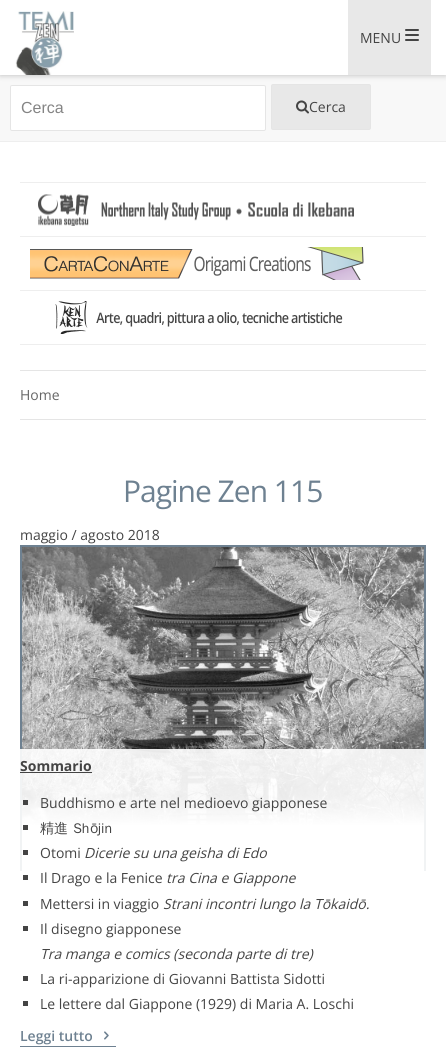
import math
import cairocffi as cairo

surface = cairo.ImageSurface(cairo.FORMAT_RGB24, 446, 1052)
ctx = cairo.Context(surface)
options = cairo.FontOptions()
options.set_hint_metrics(cairo.HINT_METRICS_OFF)
options.set_hint_style(cairo.HINT_STYLE_NONE)
ctx.set_font_options(options)
ctx.set_miter_limit(4)


def rgb(r, g, b):
    ctx.set_source_rgb(r / 255, g / 255, b / 255)


def face(family, size, italic, bold):
    ctx.select_font_face(family, cairo.FONT_SLANT_ITALIC if italic else cairo.FONT_SLANT_NORMAL, cairo.FONT_WEIGHT_BOLD if bold else cairo.FONT_WEIGHT_NORMAL)
    ctx.set_font_size(size)


def label(x, y, s):
    ctx.move_to(x, y)
    ctx.show_text(s)


def tracked(x, y, s, letter, word):
    ctx.move_to(x, y)
    for ch in s:
        ctx.show_text(ch)
        ctx.rel_move_to(letter + word * (ch == ' '), 0)


def rect(x, y, w, h):
    ctx.rectangle(x, y, w, h)
    ctx.fill()


def rrect(x, y, w, h, r):
    ctx.new_sub_path()
    for i, (u, v) in enumerate([(x + w - r, y + h - r), (x + r, y + h - r), (x + r, y + r), (x + w - r, y + r)]):
        ctx.arc(u, v, r, i * math.pi / 2, (i + 1) * math.pi / 2)
    ctx.close_path()


def soft_shadow(x, y, w, h, r, blur, alpha):
    ctx.push_group_with_content(cairo.CONTENT_ALPHA)
    ctx.set_operator(cairo.OPERATOR_SOURCE)
    for i in range(15, -16, -2):
        e = blur * i / 6
        if min(w, h) + 2 * e > 0:
            ctx.set_source_rgba(0, 0, 0, alpha * math.erfc((i - 1) / 8.5) / 2)
            rrect(x - e, y - e, w + 2 * e, h + 2 * e, max(0, min(r + e + blur * .6, min(w, h) / 2 + e)))
            ctx.fill()
    ctx.mask(ctx.pop_group())


def image(path, x, y, w, h):
    ctx.save()
    ctx.set_source_surface(cairo.ImageSurface.create_from_png(path), x, y)
    ctx.rectangle(x, y, w, h)
    ctx.fill()
    ctx.restore()


rgb(255, 255, 255)
ctx.paint()
rgb(248, 248, 248)
rect(0, 75, 446, 66)
rgb(238, 238, 238)
rect(0, 141, 446, 1)
rgb(232, 232, 232)
rrect(271.5, 84.5, 99, 45, 1.5)
ctx.fill_preserve()
rgb(229, 229, 229)
ctx.set_line_width(1)
ctx.stroke()
rgb(0, 0, 0)
soft_shadow(0, 0, 446, 75, 0, 3, 0.26)
rgb(255, 255, 255)
rect(0, 0, 446, 75)
image('image0.png', 15, 11, 59, 64)
rgb(232, 232, 232)
rect(348, 0, 83, 75)
face('Open Sans', 14, 0, 0)
rgb(68, 68, 68)
label(360, 43, 'MENU')
image('image1.png', 405, 29, 14, 12)
rgb(255, 255, 255)
rrect(10.5, 85.5, 255, 45, 1.5)
ctx.fill_preserve()
rgb(229, 229, 229)
ctx.stroke()
face('Liberation Sans', 16, 0, 0)
rgb(132, 132, 132)
label(21, 113, 'Cerca')
image('image2.png', 296, 100, 13, 14)
face('Open Sans', 14, 0, 0)
rgb(68, 68, 68)
label(309, 112, 'Cerca')
rgb(238, 238, 238)
rect(20, 344, 406, 1)
rect(20, 182, 406, 1)
image('image3.png', 38, 194, 316, 32)
rect(20, 236, 406, 1)
image('image4.png', 30, 247, 334, 33)
rect(20, 290, 406, 1)
image('image5.png', 55, 301, 288, 33)
rgb(229, 229, 229)
rect(20, 370, 406, 1)
rect(20, 419, 406, 1)
rgb(102, 102, 102)
label(20, 400, 'Home')
face('Open Sans', 30, 0, 0)
rgb(110, 129, 145)
tracked(123, 502, 'Pagine Zen 115', -1, 0)
face('Open Sans', 14, 0, 0)
rgb(68, 68, 68)
label(20, 540, 'maggio / agosto 2018')
rgb(110, 129, 145)
rect(20, 545, 406, 2)
rect(20, 547, 2, 324)
image('image6.png', 22, 547, 402, 324)
rect(424, 547, 2, 324)
ctx.set_source_rgba(1, 1, 1, 0.9)
rect(20, 749, 406, 122)
face('Open Sans', 14, 0, 1)
rgb(68, 68, 68)
label(20, 771, 'Sommario')
rect(20, 772, 72, 1)
rect(23, 800, 5, 5)
face('Open Sans', 14, 0, 0)
label(40, 808, 'Buddhismo e arte nel medioevo giapponese')
rect(23, 825, 5, 5)
face('WenQuanYi Zen Hei Medium', 14, 0, 0)
tracked(40, 833, '精進 Sh', 0, 1)
face('Open Sans', 14, 0, 0)
label(90, 833, 'ō')
face('WenQuanYi Zen Hei Medium', 14, 0, 0)
label(98, 833, 'jin')
rect(23, 850, 5, 5)
face('Open Sans', 14, 0, 0)
label(40, 858, 'Otomi')
face('Open Sans', 14, 1, 0)
label(84, 858, 'Dicerie su una geisha di Edo')
rect(23, 875, 5, 5)
face('Open Sans', 14, 0, 0)
label(40, 883, 'Il Drago e la Fenice')
face('Open Sans', 14, 1, 0)
label(166, 883, 'tra Cina e Giappone')
rect(23, 901, 5, 5)
face('Open Sans', 14, 0, 0)
label(40, 909, 'Mettersi in viaggio')
face('Open Sans', 14, 1, 0)
label(163, 909, 'Strani incontri lungo la Tōkaidō.')
rect(23, 926, 5, 5)
face('Open Sans', 14, 0, 0)
label(40, 934, 'Il disegno giapponese')
face('Open Sans', 14, 1, 0)
label(40, 959, 'Tra manga e comics (seconda parte di tre)')
rect(23, 976, 5, 5)
face('Open Sans', 14, 0, 0)
label(40, 984, 'La ri-apparizione di Giovanni Battista Sidotti')
rect(23, 1001, 5, 5)
label(40, 1009, 'Le lettere dal Giappone (1929) di Maria A. Loschi')
rgb(110, 129, 145)
rect(20, 1046, 96, 1)
face('Open Sans SemiBold', 14, 0, 0)
label(20, 1041, 'Leggi tutto')
image('image7.png', 104, 1031, 5, 9)
surface.write_to_png('render.png')
